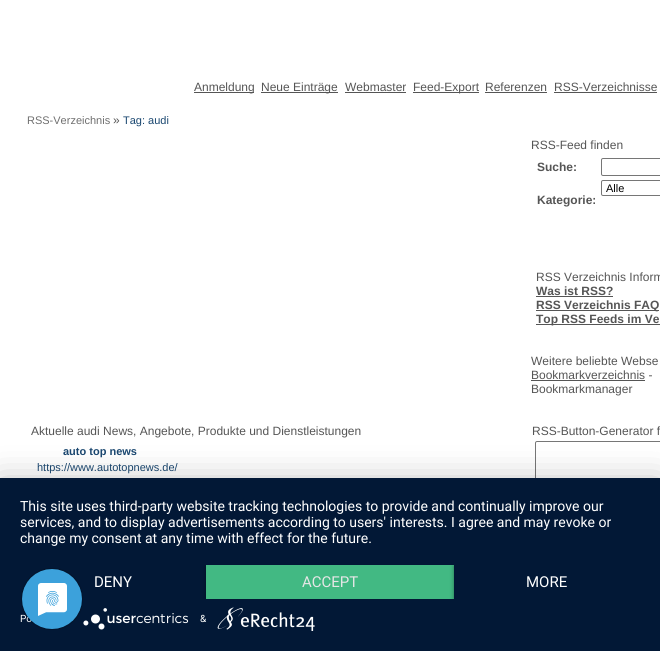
import math
import cairocffi as cairo

surface = cairo.ImageSurface(cairo.FORMAT_RGB24, 660, 651)
ctx = cairo.Context(surface)
options = cairo.FontOptions()
options.set_hint_metrics(cairo.HINT_METRICS_OFF)
options.set_hint_style(cairo.HINT_STYLE_NONE)
ctx.set_font_options(options)
ctx.set_miter_limit(4)


def rgb(r, g, b):
    ctx.set_source_rgb(r / 255, g / 255, b / 255)


def face(family, size, italic, bold):
    ctx.select_font_face(family, cairo.FONT_SLANT_ITALIC if italic else cairo.FONT_SLANT_NORMAL, cairo.FONT_WEIGHT_BOLD if bold else cairo.FONT_WEIGHT_NORMAL)
    ctx.set_font_size(size)


def label(x, y, s):
    ctx.move_to(x, y)
    ctx.show_text(s)


def rect(x, y, w, h):
    ctx.rectangle(x, y, w, h)
    ctx.fill()


def rrect(x, y, w, h, r):
    ctx.new_sub_path()
    for i, (u, v) in enumerate([(x + w - r, y + h - r), (x + r, y + h - r), (x + r, y + r), (x + w - r, y + r)]):
        ctx.arc(u, v, r, i * math.pi / 2, (i + 1) * math.pi / 2)
    ctx.close_path()


def soft_shadow(x, y, w, h, r, blur, alpha):
    ctx.push_group_with_content(cairo.CONTENT_ALPHA)
    ctx.set_operator(cairo.OPERATOR_SOURCE)
    for i in range(15, -16, -2):
        e = blur * i / 6
        if min(w, h) + 2 * e > 0:
            ctx.set_source_rgba(0, 0, 0, alpha * math.erfc((i - 1) / 8.5) / 2)
            rrect(x - e, y - e, w + 2 * e, h + 2 * e, max(0, min(r + e + blur * .6, min(w, h) / 2 + e)))
            ctx.fill()
    ctx.mask(ctx.pop_group())


def image(path, x, y, w, h):
    ctx.save()
    ctx.set_source_surface(cairo.ImageSurface.create_from_png(path), x, y)
    ctx.rectangle(x, y, w, h)
    ctx.fill()
    ctx.restore()


rgb(255, 255, 255)
ctx.paint()
rgb(85, 85, 85)
rect(194, 92, 60, 1)
face('Liberation Sans', 12, 0, 0)
label(194, 91, 'Anmeldung')
rect(261, 92, 77, 1)
label(261, 91, 'Neue Einträge')
label(345, 91, 'Webmaster')
rect(345, 92, 61, 1)
rect(413, 92, 66, 1)
label(413, 91, 'Feed-Export')
label(485, 91, 'Referenzen')
rect(485, 92, 62, 1)
label(554, 91, 'RSS-Verzeichnisse')
rect(554, 92, 103, 1)
face('Liberation Sans', 11, 0, 0)
rgb(111, 111, 111)
label(27, 124, 'RSS-Verzeichnis')
face('Liberation Sans', 12, 0, 0)
rgb(85, 85, 85)
label(113, 124, '»')
face('Liberation Sans', 11, 0, 0)
rgb(26, 71, 112)
label(123, 124, 'Tag: audi')
face('Liberation Sans', 12, 0, 0)
rgb(85, 85, 85)
label(531, 149, 'RSS-Feed finden')
face('Liberation Sans', 12, 0, 1)
label(537, 171, 'Suche:')
rrect(601.5, 158.5, 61, 17, 1.5)
rgb(118, 118, 118)
ctx.set_line_width(1)
ctx.stroke()
rrect(601.5, 180.5, 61, 15, 1.5)
ctx.stroke()
face('Liberation Sans', 11, 0, 0)
rgb(0, 0, 0)
label(606, 192, 'Alle')
face('Liberation Sans', 12, 0, 1)
rgb(85, 85, 85)
label(537, 204, 'Kategorie:')
face('Liberation Sans', 12, 0, 0)
label(536, 281, 'RSS Verzeichnis Inform')
face('Liberation Sans', 12, 0, 1)
label(536, 295, 'Was ist RSS?')
rect(536, 296, 77, 1)
rect(536, 310, 123, 1)
label(536, 309, 'RSS Verzeichnis FAQ')
rect(536, 324, 124, 1)
label(536, 323, 'Top RSS Feeds im Ve')
face('Liberation Sans', 12, 0, 0)
label(531, 365, 'Weitere beliebte Webse')
label(531, 379, 'Bookmarkverzeichnis -')
rect(531, 380, 114, 1)
label(531, 393, 'Bookmarkmanager')
label(532, 435, 'RSS-Button-Generator f')
rrect(535.5, 441.5, 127, 65, 1.5)
rgb(118, 118, 118)
ctx.stroke()
rgb(85, 85, 85)
label(31, 435, 'Aktuelle audi News, Angebote, Produkte und Dienstleistungen')
face('Liberation Sans', 11, 0, 1)
rgb(26, 71, 112)
label(63, 455, 'auto top news')
face('Liberation Sans', 11, 0, 0)
label(37, 471, 'https://www.autotopnews.de/')
rgb(0, 0, 0)
soft_shadow(0, 484, 660, 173, 0, 18, 0.3)
rgb(2, 24, 54)
rect(0, 478, 660, 173)
face('Roboto', 14, 0, 0)
rgb(255, 255, 255)
label(20, 511, 'This site uses third-party website tracking technologies to provide and continually improve our')
label(20, 527, 'services, and to display advertisements according to users\' interests. I agree and may revoke or')
label(20, 543, 'change my consent at any time with effect for the future.')
face('Roboto', 15, 0, 0)
label(94, 587, 'DENY')
ctx.save()
ctx.rectangle(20, 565, 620, 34)
ctx.clip()
rgb(0, 0, 0)
soft_shadow(206, 566, 248, 34, 0, 2, 0.4)
ctx.restore()
rgb(66, 185, 131)
rect(206, 565, 248, 34)
rgb(230, 230, 230)
label(302, 587, 'ACCEPT')
ctx.save()
ctx.rectangle(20, 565, 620, 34)
ctx.clip()
rgb(0, 0, 0)
soft_shadow(454, 566, 186, 34, 0, 2, 0.4)
ctx.restore()
rgb(2, 24, 54)
rect(454, 565, 186, 34)
rgb(255, 255, 255)
label(526, 587, 'MORE')
face('Roboto', 10, 0, 0)
label(20, 622, 'Po')
image('image0.png', 83, 608, 106, 22)
label(200, 622, '&')
image('image1.png', 217, 607, 98, 24)
image('image2.png', 21, 568, 62, 62)
surface.write_to_png('render.png')
